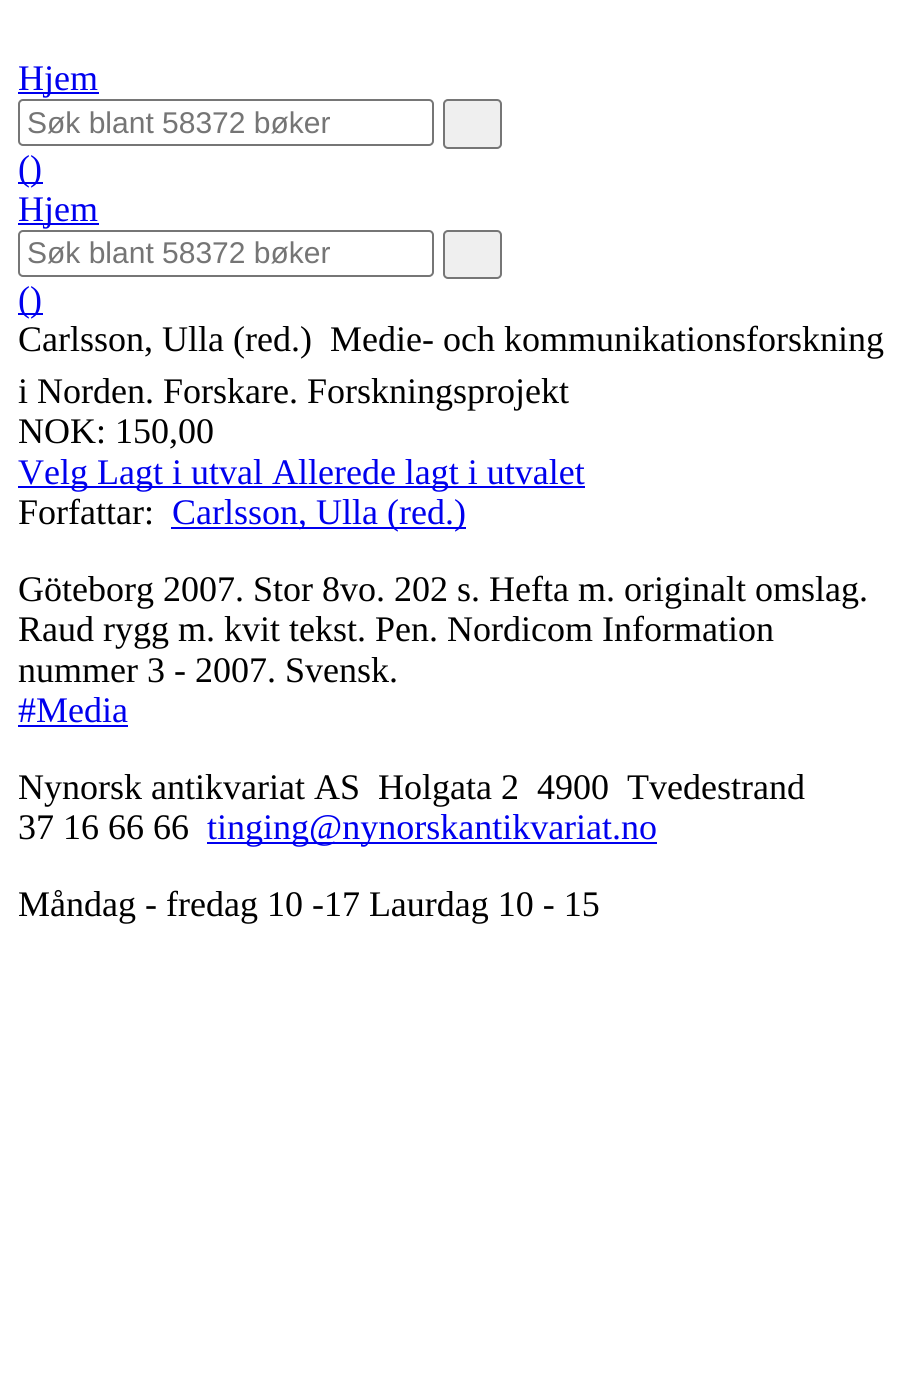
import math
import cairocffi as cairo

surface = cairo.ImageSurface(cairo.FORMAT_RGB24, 906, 1391)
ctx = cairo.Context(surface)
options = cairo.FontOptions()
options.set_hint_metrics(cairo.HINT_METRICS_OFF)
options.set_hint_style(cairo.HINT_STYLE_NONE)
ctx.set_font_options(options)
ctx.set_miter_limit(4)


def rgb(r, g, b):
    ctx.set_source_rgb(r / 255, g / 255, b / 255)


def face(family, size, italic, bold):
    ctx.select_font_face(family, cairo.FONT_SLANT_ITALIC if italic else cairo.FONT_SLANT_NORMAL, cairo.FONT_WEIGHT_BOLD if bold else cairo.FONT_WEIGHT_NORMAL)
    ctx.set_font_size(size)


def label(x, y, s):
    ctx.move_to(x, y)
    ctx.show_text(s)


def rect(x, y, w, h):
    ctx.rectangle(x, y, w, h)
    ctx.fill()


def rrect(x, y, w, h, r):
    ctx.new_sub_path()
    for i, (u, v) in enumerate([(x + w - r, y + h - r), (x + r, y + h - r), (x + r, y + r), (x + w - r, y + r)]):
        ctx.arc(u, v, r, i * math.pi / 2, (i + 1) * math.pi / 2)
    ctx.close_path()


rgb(255, 255, 255)
ctx.paint()
rgb(0, 0, 238)
rect(18, 92, 81, 2)
face('Liberation Serif', 36, 0, 0)
label(18, 90, 'Hjem')
rrect(19, 100, 414, 45, 4)
rgb(118, 118, 118)
ctx.stroke()
face('Liberation Sans', 30, 0, 0)
rgb(117, 117, 117)
label(27, 133, 'Søk blant 58372 bøker')
rgb(239, 239, 239)
rrect(444, 100, 57, 48, 4)
ctx.fill_preserve()
rgb(118, 118, 118)
ctx.stroke()
rgb(0, 0, 238)
rect(18, 182, 25, 2)
face('Liberation Serif', 36, 0, 0)
label(18, 180, '()')
rect(18, 223, 81, 2)
label(18, 221, 'Hjem')
rrect(19, 231, 414, 45, 4)
rgb(118, 118, 118)
ctx.stroke()
face('Liberation Sans', 30, 0, 0)
rgb(117, 117, 117)
label(27, 263, 'Søk blant 58372 bøker')
rgb(239, 239, 239)
rrect(444, 231, 57, 47, 4)
ctx.fill_preserve()
rgb(118, 118, 118)
ctx.stroke()
rgb(0, 0, 238)
rect(18, 313, 25, 2)
face('Liberation Serif', 36, 0, 0)
label(18, 311, '()')
rgb(0, 0, 0)
label(18, 351, 'Carlsson, Ulla (red.)')
label(330, 351, 'Medie- och kommunikationsforskning')
label(18, 403, 'i Norden. Forskare. Forskningsprojekt')
label(18, 443, 'NOK: 150,00')
rgb(0, 0, 238)
rect(18, 486, 567, 2)
label(18, 484, 'Velg Lagt i utval Allerede lagt i utvalet')
rgb(0, 0, 0)
label(18, 524, 'Forfattar:')
rgb(0, 0, 238)
rect(171, 527, 295, 2)
label(172, 524, 'Carlsson, Ulla (red.)')
rgb(0, 0, 0)
label(18, 601, 'Göteborg 2007. Stor 8vo. 202 s. Hefta m. originalt omslag.')
label(18, 641, 'Raud rygg m. kvit tekst. Pen. Nordicom Information')
label(18, 682, 'nummer 3 - 2007. Svensk.')
rgb(0, 0, 238)
label(18, 722, '#Media')
rect(18, 725, 110, 2)
rgb(0, 0, 0)
label(18, 799, 'Nynorsk antikvariat AS')
label(378, 799, 'Holgata 2')
label(537, 799, '4900')
label(627, 799, 'Tvedestrand')
label(18, 839, '37 16 66 66')
rgb(0, 0, 238)
rect(207, 842, 450, 2)
label(207, 839, 'tinging@nynorskantikvariat.no')
rgb(0, 0, 0)
label(18, 916, 'Måndag - fredag 10 -17 Laurdag 10 - 15')
surface.write_to_png('render.png')
